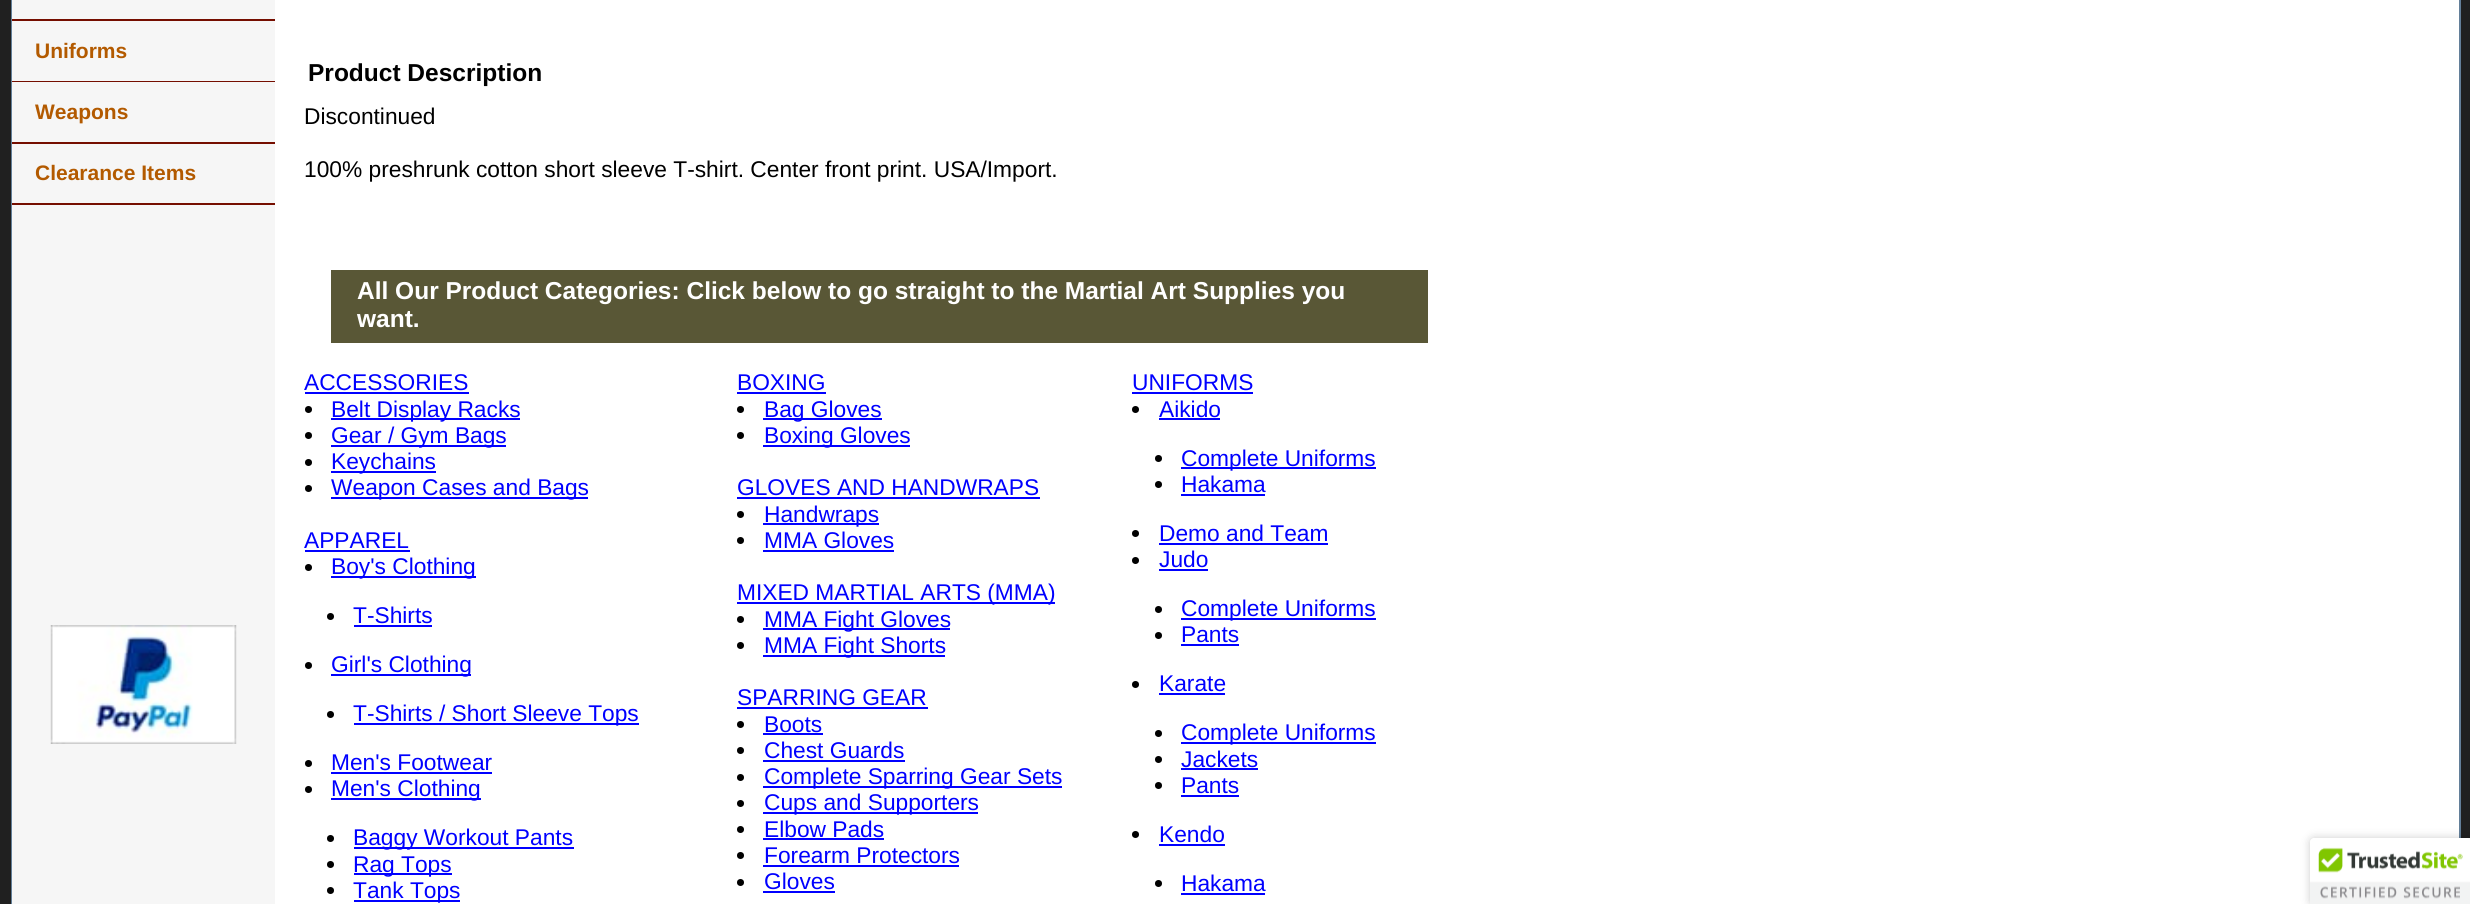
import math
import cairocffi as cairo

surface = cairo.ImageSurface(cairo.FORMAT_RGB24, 2470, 904)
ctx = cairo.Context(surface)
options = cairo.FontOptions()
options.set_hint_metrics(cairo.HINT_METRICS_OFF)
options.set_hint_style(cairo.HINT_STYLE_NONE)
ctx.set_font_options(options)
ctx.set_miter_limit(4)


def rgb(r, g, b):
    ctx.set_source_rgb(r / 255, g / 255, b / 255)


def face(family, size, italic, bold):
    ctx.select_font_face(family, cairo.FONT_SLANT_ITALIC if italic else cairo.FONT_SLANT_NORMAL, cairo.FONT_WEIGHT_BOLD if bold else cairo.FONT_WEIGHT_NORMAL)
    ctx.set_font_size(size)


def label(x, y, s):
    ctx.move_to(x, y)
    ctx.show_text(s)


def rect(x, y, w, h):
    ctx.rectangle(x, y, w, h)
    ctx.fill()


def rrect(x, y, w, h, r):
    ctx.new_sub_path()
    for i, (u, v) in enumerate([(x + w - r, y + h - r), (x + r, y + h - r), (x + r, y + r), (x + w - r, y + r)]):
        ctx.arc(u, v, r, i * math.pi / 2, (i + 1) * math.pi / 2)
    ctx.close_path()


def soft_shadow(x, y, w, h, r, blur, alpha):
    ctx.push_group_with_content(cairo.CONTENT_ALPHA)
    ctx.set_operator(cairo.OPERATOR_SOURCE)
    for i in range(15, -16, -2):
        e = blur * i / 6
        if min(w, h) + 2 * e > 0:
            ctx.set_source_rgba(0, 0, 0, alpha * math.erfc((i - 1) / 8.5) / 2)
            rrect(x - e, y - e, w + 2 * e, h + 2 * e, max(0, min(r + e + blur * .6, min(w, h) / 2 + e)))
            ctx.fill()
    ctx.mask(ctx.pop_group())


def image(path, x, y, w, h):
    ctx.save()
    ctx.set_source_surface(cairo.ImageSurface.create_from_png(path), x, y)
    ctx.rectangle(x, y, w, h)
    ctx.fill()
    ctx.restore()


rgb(32, 32, 32)
ctx.paint()
rgb(255, 255, 255)
rect(1472, 0, 987, 904)
ctx.rectangle(12, -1, 2448, 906)
rgb(99, 127, 153)
ctx.stroke()
rgb(255, 255, 255)
rect(275, 0, 1197, 904)
rgb(246, 246, 246)
rect(12, 0, 263, 904)
rgb(117, 14, 0)
rect(12, 19, 263, 2)
rect(12, 81, 263, 1)
face('Liberation Sans', 21, 0, 1)
rgb(179, 90, 0)
label(35, 58, 'Uniforms')
rgb(117, 14, 0)
rect(12, 142, 263, 2)
rgb(179, 90, 0)
label(35, 119, 'Weapons')
rgb(117, 14, 0)
rect(12, 203, 263, 2)
rgb(179, 90, 0)
label(35, 180, 'Clearance Items')
image('image0.png', 50, 625, 187, 119)
face('Liberation Sans', 24.5, 0, 1)
rgb(0, 0, 0)
label(308, 81, 'Product Description')
face('Liberation Sans', 22.75, 0, 0)
label(304, 124, 'Discontinued')
label(304, 177, '100% preshrunk cotton short sleeve T-shirt. Center front print. USA/Import.')
rgb(89, 87, 54)
rect(331, 270, 1097, 73)
face('Liberation Sans', 24.5, 0, 1)
rgb(255, 255, 255)
label(357, 299, 'All Our Product Categories: Click below to go straight to the Martial Art Supplies you')
label(357, 327, 'want.')
face('Liberation Sans', 22.75, 0, 0)
rgb(0, 0, 255)
label(304, 390, 'ACCESSORIES')
rect(305, 392, 164, 2)
rgb(0, 0, 0)
ctx.new_path()
ctx.arc(308.5, 409.5, 3.5, 0, 2 * math.pi)
ctx.fill()
rgb(0, 0, 255)
rect(331, 418, 189, 2)
label(331, 417, 'Belt Display Racks')
rgb(0, 0, 0)
ctx.new_path()
ctx.arc(308.5, 435.5, 3.5, 0, 2 * math.pi)
ctx.fill()
rgb(0, 0, 255)
rect(331, 445, 175, 2)
label(331, 443, 'Gear / Gym Bags')
rgb(0, 0, 0)
ctx.new_path()
ctx.arc(308.5, 462.5, 3.5, 0, 2 * math.pi)
ctx.fill()
rgb(0, 0, 255)
rect(331, 471, 105, 2)
label(331, 469, 'Keychains')
rgb(0, 0, 0)
ctx.new_path()
ctx.arc(308.5, 488.5, 3.5, 0, 2 * math.pi)
ctx.fill()
rgb(0, 0, 255)
rect(331, 497, 257, 2)
label(331, 495, 'Weapon Cases and Bags')
label(304, 548, 'APPAREL')
rect(305, 550, 105, 2)
rgb(0, 0, 0)
ctx.new_path()
ctx.arc(308.5, 567.5, 3.5, 0, 2 * math.pi)
ctx.fill()
rgb(0, 0, 255)
rect(331, 576, 145, 2)
label(331, 574, 'Boy\'s Clothing')
rgb(0, 0, 0)
ctx.new_path()
ctx.arc(330.5, 616.5, 3.5, 0, 2 * math.pi)
ctx.fill()
rgb(0, 0, 255)
label(353, 623, 'T-Shirts')
rect(354, 625, 78, 2)
rgb(0, 0, 0)
ctx.new_path()
ctx.arc(308.5, 665.5, 3.5, 0, 2 * math.pi)
ctx.fill()
rgb(0, 0, 255)
rect(331, 674, 140, 2)
label(331, 672, 'Girl\'s Clothing')
rgb(0, 0, 0)
ctx.new_path()
ctx.arc(330.5, 714.5, 3.5, 0, 2 * math.pi)
ctx.fill()
rgb(0, 0, 255)
rect(354, 723, 285, 2)
label(353, 721, 'T-Shirts / Short Sleeve Tops')
rgb(0, 0, 0)
ctx.new_path()
ctx.arc(308.5, 763.5, 3.5, 0, 2 * math.pi)
ctx.fill()
rgb(0, 0, 255)
label(331, 770, 'Men\'s Footwear')
rect(331, 772, 161, 2)
rgb(0, 0, 0)
ctx.new_path()
ctx.arc(308.5, 789.5, 3.5, 0, 2 * math.pi)
ctx.fill()
rgb(0, 0, 255)
rect(331, 798, 150, 2)
label(331, 796, 'Men\'s Clothing')
rgb(0, 0, 0)
ctx.new_path()
ctx.arc(330.5, 838.5, 3.5, 0, 2 * math.pi)
ctx.fill()
rgb(0, 0, 255)
rect(354, 847, 220, 2)
label(353, 845, 'Baggy Workout Pants')
rgb(0, 0, 0)
ctx.new_path()
ctx.arc(330.5, 864.5, 3.5, 0, 2 * math.pi)
ctx.fill()
rgb(0, 0, 255)
rect(354, 873, 98, 2)
label(353, 872, 'Rag Tops')
rgb(0, 0, 0)
ctx.new_path()
ctx.arc(330.5, 890.5, 3.5, 0, 2 * math.pi)
ctx.fill()
rgb(0, 0, 255)
rect(354, 900, 106, 2)
label(353, 898, 'Tank Tops')
label(737, 390, 'BOXING')
rect(737, 392, 89, 2)
rgb(0, 0, 0)
ctx.new_path()
ctx.arc(740.5, 409.5, 3.5, 0, 2 * math.pi)
ctx.fill()
rgb(0, 0, 255)
rect(763, 418, 119, 2)
label(764, 417, 'Bag Gloves')
rgb(0, 0, 0)
ctx.new_path()
ctx.arc(740.5, 435.5, 3.5, 0, 2 * math.pi)
ctx.fill()
rgb(0, 0, 255)
rect(763, 445, 147, 2)
label(764, 443, 'Boxing Gloves')
label(737, 495, 'GLOVES AND HANDWRAPS')
rect(737, 497, 303, 2)
rgb(0, 0, 0)
ctx.new_path()
ctx.arc(740.5, 514.5, 3.5, 0, 2 * math.pi)
ctx.fill()
rgb(0, 0, 255)
rect(763, 523, 116, 2)
label(764, 522, 'Handwraps')
rgb(0, 0, 0)
ctx.new_path()
ctx.arc(740.5, 540.5, 3.5, 0, 2 * math.pi)
ctx.fill()
rgb(0, 0, 255)
label(764, 548, 'MMA Gloves')
rect(763, 550, 131, 2)
rect(737, 602, 318, 2)
label(737, 600, 'MIXED MARTIAL ARTS (MMA)')
rgb(0, 0, 0)
ctx.new_path()
ctx.arc(740.5, 619.5, 3.5, 0, 2 * math.pi)
ctx.fill()
rgb(0, 0, 255)
rect(763, 628, 187, 2)
label(764, 627, 'MMA Fight Gloves')
rgb(0, 0, 0)
ctx.new_path()
ctx.arc(740.5, 645.5, 3.5, 0, 2 * math.pi)
ctx.fill()
rgb(0, 0, 255)
rect(763, 655, 182, 2)
label(764, 653, 'MMA Fight Shorts')
label(737, 705, 'SPARRING GEAR')
rect(737, 707, 191, 2)
rgb(0, 0, 0)
ctx.new_path()
ctx.arc(740.5, 724.5, 3.5, 0, 2 * math.pi)
ctx.fill()
rgb(0, 0, 255)
label(764, 732, 'Boots')
rect(763, 733, 60, 2)
rgb(0, 0, 0)
ctx.new_path()
ctx.arc(740.5, 750.5, 3.5, 0, 2 * math.pi)
ctx.fill()
rgb(0, 0, 255)
label(764, 758, 'Chest Guards')
rect(763, 760, 142, 2)
rgb(0, 0, 0)
ctx.new_path()
ctx.arc(740.5, 777.5, 3.5, 0, 2 * math.pi)
ctx.fill()
rgb(0, 0, 255)
rect(763, 786, 299, 2)
label(764, 784, 'Complete Sparring Gear Sets')
rgb(0, 0, 0)
ctx.new_path()
ctx.arc(740.5, 803.5, 3.5, 0, 2 * math.pi)
ctx.fill()
rgb(0, 0, 255)
rect(763, 812, 215, 2)
label(764, 810, 'Cups and Supporters')
rgb(0, 0, 0)
ctx.new_path()
ctx.arc(740.5, 829.5, 3.5, 0, 2 * math.pi)
ctx.fill()
rgb(0, 0, 255)
label(764, 837, 'Elbow Pads')
rect(763, 838, 121, 2)
rgb(0, 0, 0)
ctx.new_path()
ctx.arc(740.5, 855.5, 3.5, 0, 2 * math.pi)
ctx.fill()
rgb(0, 0, 255)
label(764, 863, 'Forearm Protectors')
rect(763, 865, 196, 2)
rgb(0, 0, 0)
ctx.new_path()
ctx.arc(740.5, 882.5, 3.5, 0, 2 * math.pi)
ctx.fill()
rgb(0, 0, 255)
label(764, 889, 'Gloves')
rect(763, 891, 72, 2)
label(1132, 390, 'UNIFORMS')
rect(1132, 392, 121, 2)
rgb(0, 0, 0)
ctx.new_path()
ctx.arc(1135.5, 409.5, 3.5, 0, 2 * math.pi)
ctx.fill()
rgb(0, 0, 255)
label(1159, 417, 'Aikido')
rect(1159, 418, 61, 2)
rgb(0, 0, 0)
ctx.new_path()
ctx.arc(1158.5, 458.5, 3.5, 0, 2 * math.pi)
ctx.fill()
rgb(0, 0, 255)
rect(1181, 467, 195, 2)
label(1181, 466, 'Complete Uniforms')
rgb(0, 0, 0)
ctx.new_path()
ctx.arc(1158.5, 484.5, 3.5, 0, 2 * math.pi)
ctx.fill()
rgb(0, 0, 255)
label(1181, 492, 'Hakama')
rect(1181, 494, 84, 2)
rgb(0, 0, 0)
ctx.new_path()
ctx.arc(1135.5, 533.5, 3.5, 0, 2 * math.pi)
ctx.fill()
rgb(0, 0, 255)
label(1159, 541, 'Demo and Team')
rect(1159, 543, 169, 2)
rgb(0, 0, 0)
ctx.new_path()
ctx.arc(1135.5, 560.5, 3.5, 0, 2 * math.pi)
ctx.fill()
rgb(0, 0, 255)
label(1159, 567, 'Judo')
rect(1159, 569, 49, 2)
rgb(0, 0, 0)
ctx.new_path()
ctx.arc(1158.5, 609.5, 3.5, 0, 2 * math.pi)
ctx.fill()
rgb(0, 0, 255)
rect(1181, 618, 195, 2)
label(1181, 616, 'Complete Uniforms')
rgb(0, 0, 0)
ctx.new_path()
ctx.arc(1158.5, 635.5, 3.5, 0, 2 * math.pi)
ctx.fill()
rgb(0, 0, 255)
label(1181, 642, 'Pants')
rect(1181, 644, 58, 2)
rgb(0, 0, 0)
ctx.new_path()
ctx.arc(1135.5, 684.5, 3.5, 0, 2 * math.pi)
ctx.fill()
rgb(0, 0, 255)
label(1159, 691, 'Karate')
rect(1159, 693, 66, 2)
rgb(0, 0, 0)
ctx.new_path()
ctx.arc(1158.5, 733.5, 3.5, 0, 2 * math.pi)
ctx.fill()
rgb(0, 0, 255)
rect(1181, 742, 195, 2)
label(1181, 740, 'Complete Uniforms')
rgb(0, 0, 0)
ctx.new_path()
ctx.arc(1158.5, 759.5, 3.5, 0, 2 * math.pi)
ctx.fill()
rgb(0, 0, 255)
label(1181, 767, 'Jackets')
rect(1181, 768, 77, 2)
rgb(0, 0, 0)
ctx.new_path()
ctx.arc(1158.5, 785.5, 3.5, 0, 2 * math.pi)
ctx.fill()
rgb(0, 0, 255)
label(1181, 793, 'Pants')
rect(1181, 795, 58, 2)
rgb(0, 0, 0)
ctx.new_path()
ctx.arc(1135.5, 834.5, 3.5, 0, 2 * math.pi)
ctx.fill()
rgb(0, 0, 255)
label(1159, 842, 'Kendo')
rect(1159, 844, 66, 2)
rgb(0, 0, 0)
ctx.new_path()
ctx.arc(1158.5, 883.5, 3.5, 0, 2 * math.pi)
ctx.fill()
rgb(0, 0, 255)
label(1181, 891, 'Hakama')
rect(1181, 893, 84, 2)
rgb(0, 0, 0)
soft_shadow(2310, 838, 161, 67, 4, 4.5, 0.2)
rgb(255, 255, 255)
ctx.new_path()
ctx.move_to(2314, 838)
ctx.line_to(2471, 838)
ctx.line_to(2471, 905)
ctx.line_to(2310, 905)
ctx.line_to(2310, 842)
ctx.curve_to(2310, 840, 2312, 838, 2314, 838)
ctx.close_path()
ctx.fill()
image('image1.png', 2310, 838, 160, 66)
surface.write_to_png('render.png')
